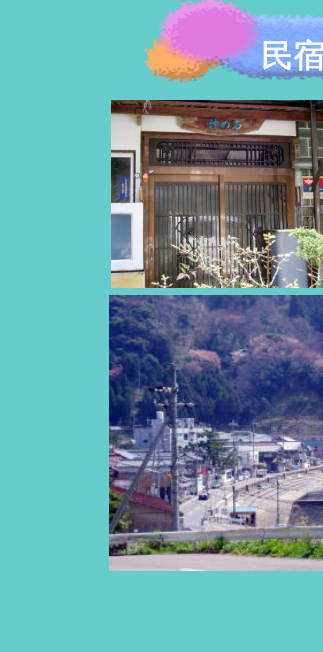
import math
import cairocffi as cairo

surface = cairo.ImageSurface(cairo.FORMAT_RGB24, 323, 652)
ctx = cairo.Context(surface)
options = cairo.FontOptions()
options.set_hint_metrics(cairo.HINT_METRICS_OFF)
options.set_hint_style(cairo.HINT_STYLE_NONE)
ctx.set_font_options(options)
ctx.set_miter_limit(4)


def rgb(r, g, b):
    ctx.set_source_rgb(r / 255, g / 255, b / 255)


def face(family, size, italic, bold):
    ctx.select_font_face(family, cairo.FONT_SLANT_ITALIC if italic else cairo.FONT_SLANT_NORMAL, cairo.FONT_WEIGHT_BOLD if bold else cairo.FONT_WEIGHT_NORMAL)
    ctx.set_font_size(size)


def label(x, y, s):
    ctx.move_to(x, y)
    ctx.show_text(s)


def image(path, x, y, w, h):
    ctx.save()
    ctx.set_source_surface(cairo.ImageSurface.create_from_png(path), x, y)
    ctx.rectangle(x, y, w, h)
    ctx.fill()
    ctx.restore()


rgb(102, 204, 204)
ctx.paint()
image('image0.png', 144, 0, 179, 83)
face('WenQuanYi Zen Hei', 32, 0, 1)
rgb(255, 255, 255)
label(261, 67, '民宿')
image('image1.png', 111, 100, 212, 188)
image('image2.png', 109, 295, 214, 276)
surface.write_to_png('render.png')
